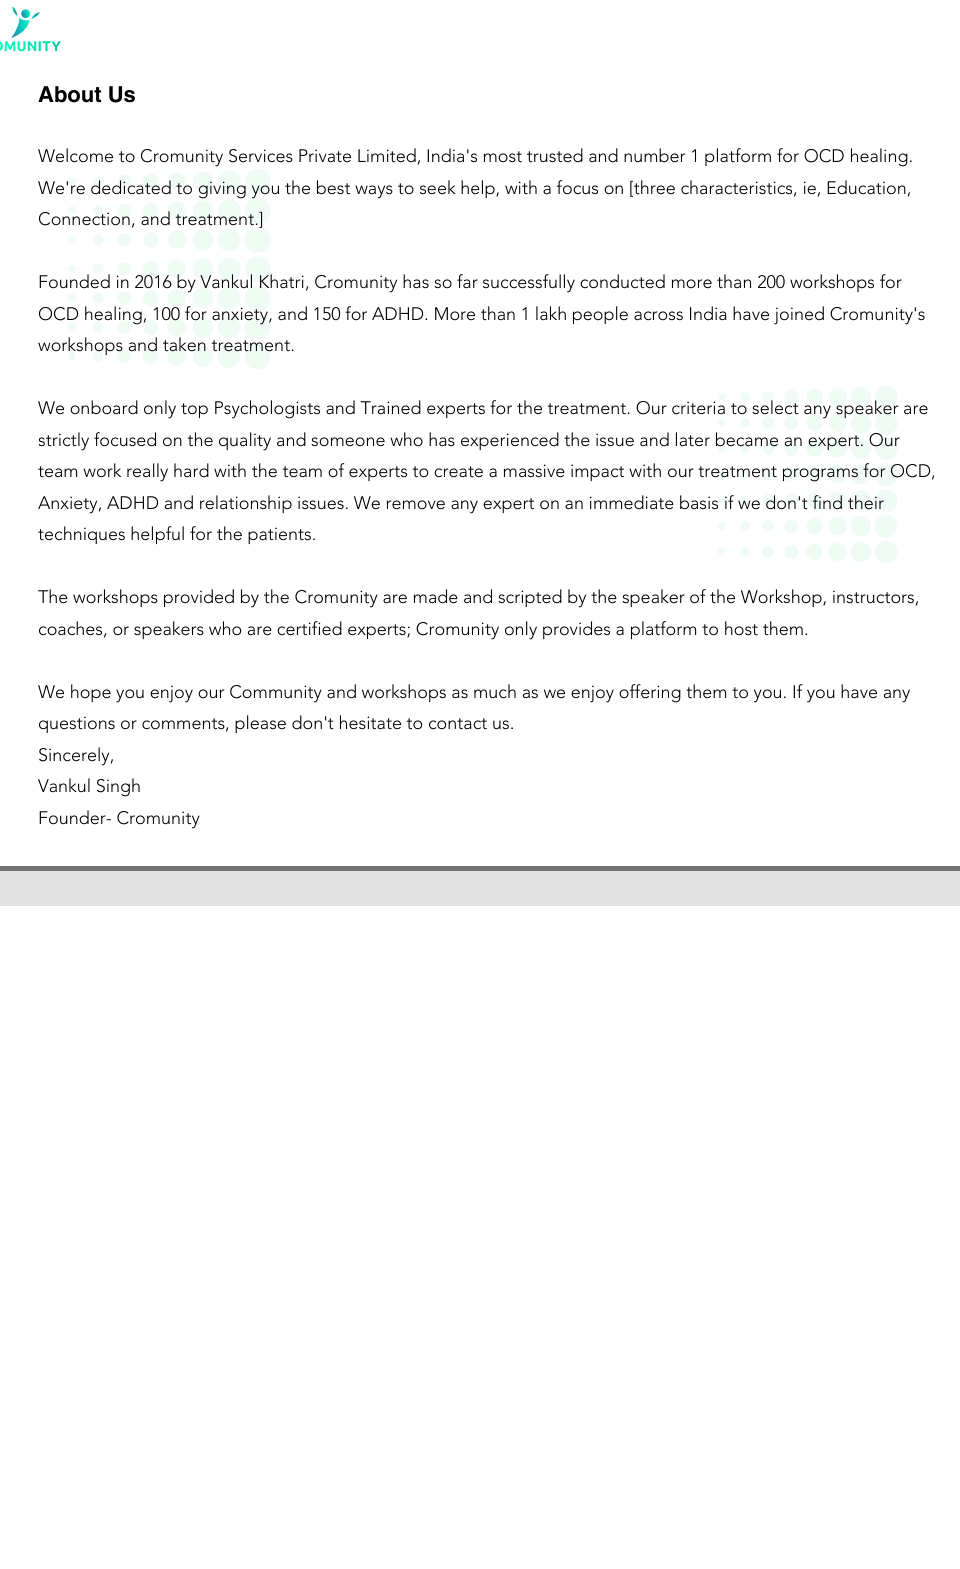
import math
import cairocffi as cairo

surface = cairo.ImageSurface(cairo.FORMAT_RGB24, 960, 1569)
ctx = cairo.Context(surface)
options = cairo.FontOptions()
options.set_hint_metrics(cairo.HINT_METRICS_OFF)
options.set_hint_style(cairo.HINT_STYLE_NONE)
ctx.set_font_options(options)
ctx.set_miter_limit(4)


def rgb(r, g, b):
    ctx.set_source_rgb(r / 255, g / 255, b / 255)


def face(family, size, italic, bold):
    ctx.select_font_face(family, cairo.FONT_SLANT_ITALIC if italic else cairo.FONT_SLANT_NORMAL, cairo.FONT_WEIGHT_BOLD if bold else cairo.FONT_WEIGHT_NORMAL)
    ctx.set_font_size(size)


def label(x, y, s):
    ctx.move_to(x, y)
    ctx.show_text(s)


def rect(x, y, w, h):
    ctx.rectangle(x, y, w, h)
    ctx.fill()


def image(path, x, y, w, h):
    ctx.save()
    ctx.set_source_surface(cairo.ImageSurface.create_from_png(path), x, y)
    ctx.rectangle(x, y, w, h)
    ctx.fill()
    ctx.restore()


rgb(255, 255, 255)
ctx.paint()
image('image0.png', 0, 6, 61, 46)
face('helvetica', 22, 0, 1)
rgb(0, 0, 0)
label(38, 102, 'About Us')
face('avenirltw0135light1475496 Light', 18, 0, 0)
label(38, 162, 'Welcome to Cromunity Services Private Limited, India\'s most trusted and number 1 platform for OCD healing.')
image('image1.png', 67, 169, 204, 201)
label(38, 194, 'We\'re dedicated to giving you the best ways to seek help, with a focus on [three characteristics, ie, Education,')
label(38, 225, 'Connection, and treatment.]')
label(38, 288, 'Founded in 2016 by Vankul Khatri, Cromunity has so far successfully conducted more than 200 workshops for')
label(38, 320, 'OCD healing, 100 for anxiety, and 150 for ADHD. More than 1 lakh people across India have joined Cromunity\'s')
label(38, 351, 'workshops and taken treatment.')
image('image2.png', 718, 386, 180, 178)
label(38, 414, 'We onboard only top Psychologists and Trained experts for the treatment. Our criteria to select any speaker are')
label(38, 446, 'strictly focused on the quality and someone who has experienced the issue and later became an expert. Our')
label(38, 477, 'team work really hard with the team of experts to create a massive impact with our treatment programs for OCD,')
label(38, 509, 'Anxiety, ADHD and relationship issues. We remove any expert on an immediate basis if we don\'t find their')
label(38, 540, 'techniques helpful for the patients.')
label(38, 603, 'The workshops provided by the Cromunity are made and scripted by the speaker of the Workshop, instructors,')
label(38, 635, 'coaches, or speakers who are certified experts; Cromunity only provides a platform to host them.')
label(38, 698, 'We hope you enjoy our Community and workshops as much as we enjoy offering them to you. If you have any')
label(38, 729, 'questions or comments, please don\'t hesitate to contact us.')
label(38, 761, 'Sincerely,')
label(38, 792, 'Vankul Singh')
label(38, 824, 'Founder- Cromunity')
rgb(117, 117, 117)
rect(0, 866, 960, 5)
rgb(226, 226, 226)
rect(0, 871, 960, 35)
surface.write_to_png('render.png')
